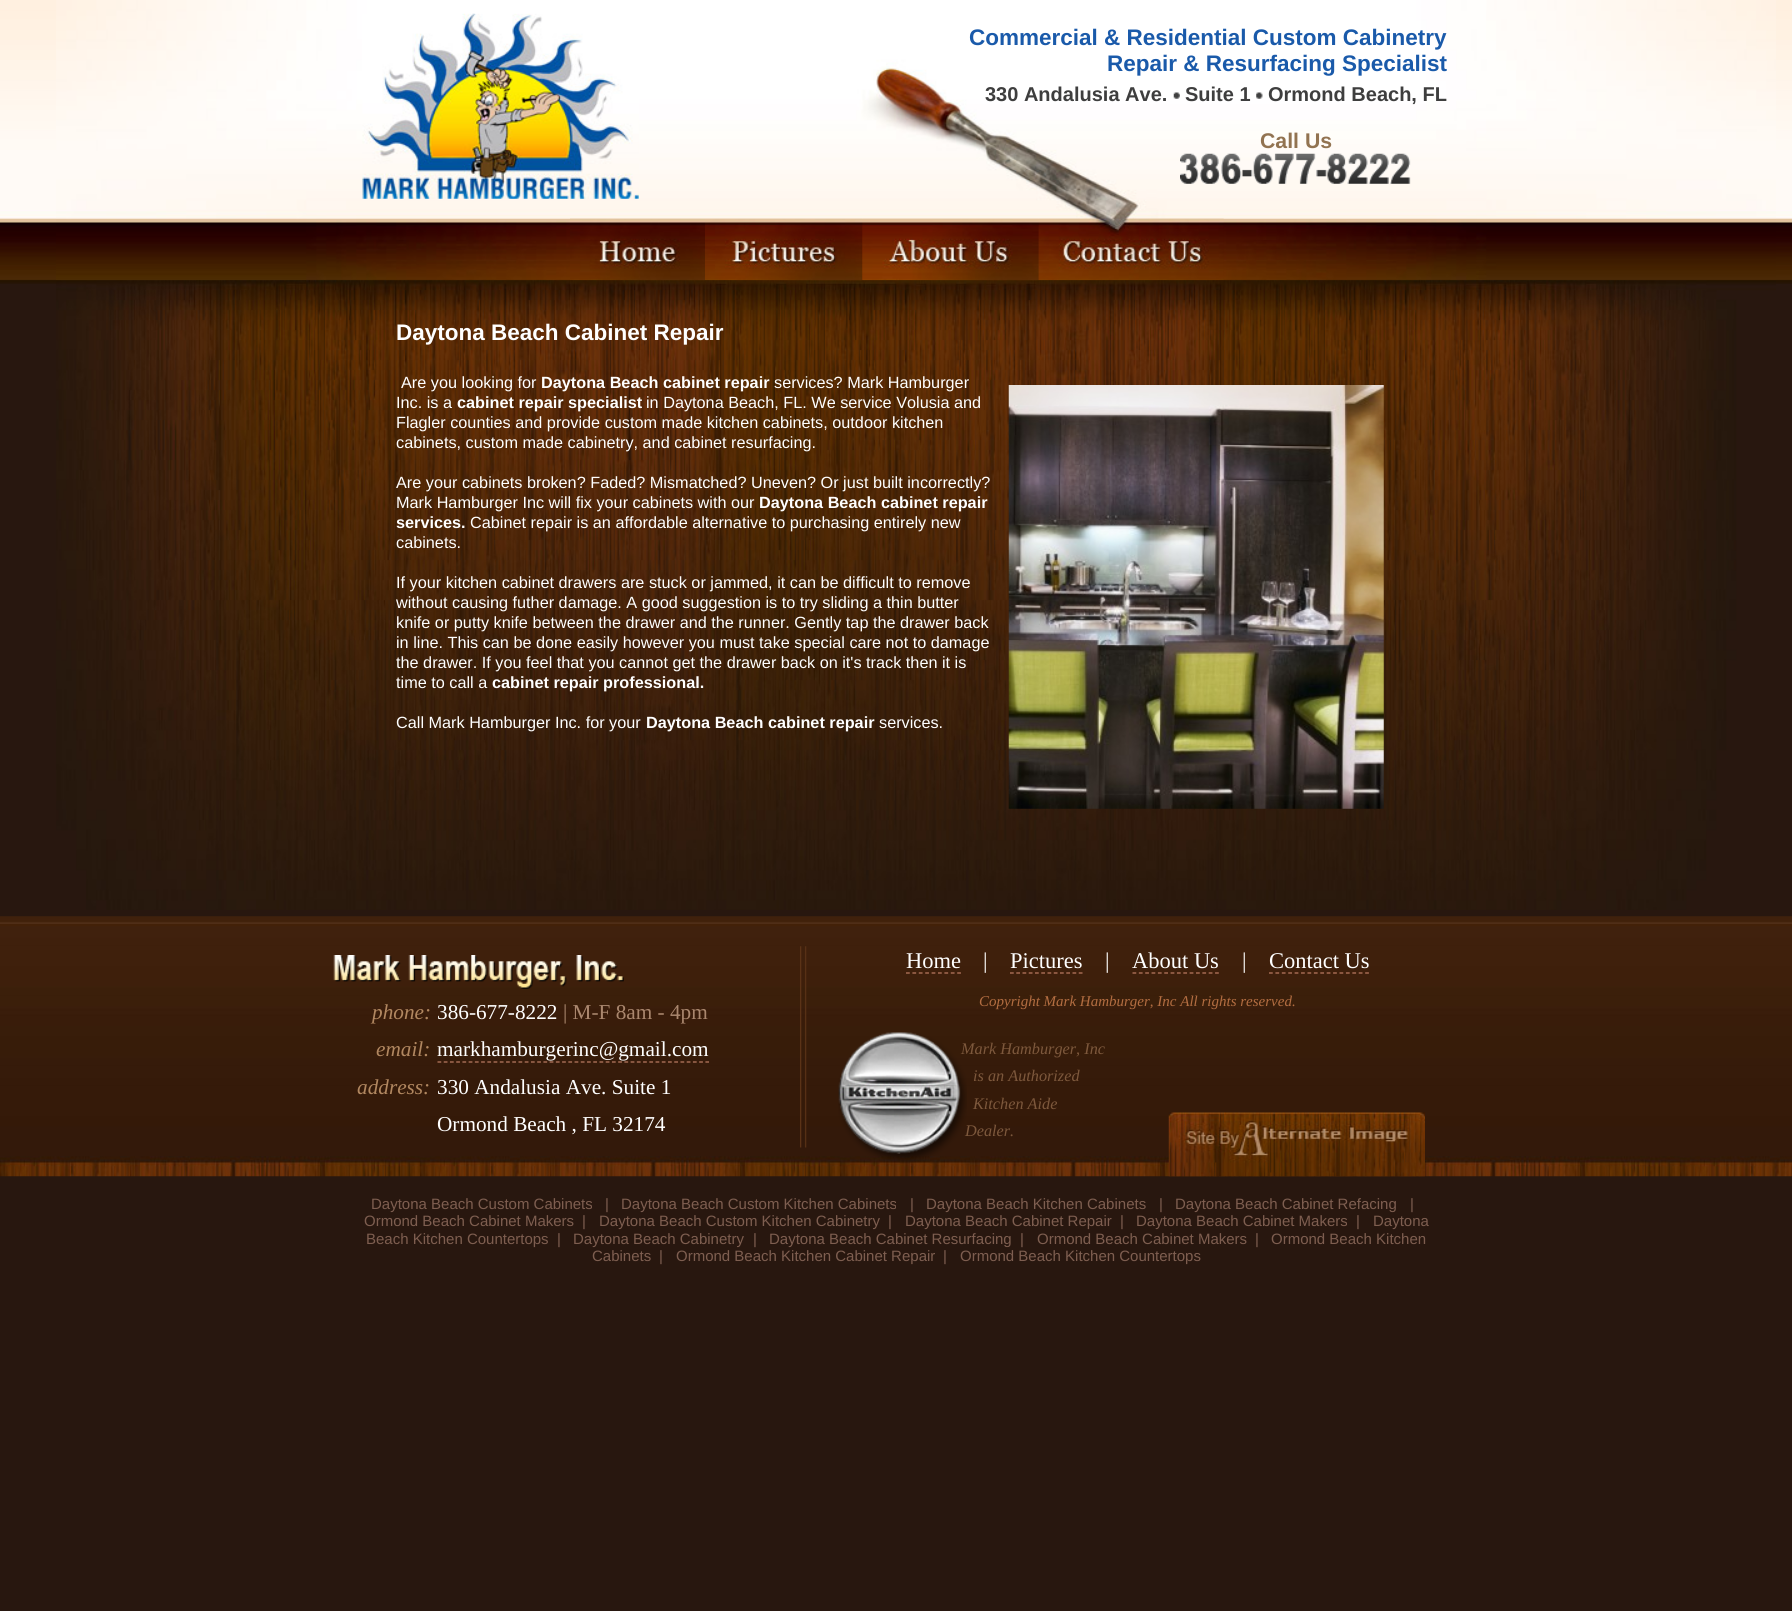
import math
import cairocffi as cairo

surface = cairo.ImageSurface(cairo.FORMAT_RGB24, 1792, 1611)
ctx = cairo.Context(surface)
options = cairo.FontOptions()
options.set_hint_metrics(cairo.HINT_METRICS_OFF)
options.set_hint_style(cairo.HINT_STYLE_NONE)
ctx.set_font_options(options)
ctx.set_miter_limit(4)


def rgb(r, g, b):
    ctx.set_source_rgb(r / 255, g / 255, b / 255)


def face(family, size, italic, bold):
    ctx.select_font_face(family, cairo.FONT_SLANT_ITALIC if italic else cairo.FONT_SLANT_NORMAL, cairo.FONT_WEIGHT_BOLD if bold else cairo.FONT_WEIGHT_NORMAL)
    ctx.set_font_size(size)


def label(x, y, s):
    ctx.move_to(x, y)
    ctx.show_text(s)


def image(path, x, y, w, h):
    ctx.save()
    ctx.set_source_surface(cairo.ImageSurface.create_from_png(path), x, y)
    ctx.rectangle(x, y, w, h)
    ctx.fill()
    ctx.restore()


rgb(40, 23, 15)
ctx.paint()
image('image0.png', 0, 0, 1792, 284)
image('image1.png', 56, 0, 1720, 910)
image('image2.png', 362, 13, 277, 186)
face('Liberation Sans', 22.5, 0, 1)
rgb(26, 90, 170)
label(969, 45, 'Commercial & Residential Custom Cabinetry')
label(1107, 71, 'Repair & Resurfacing Specialist')
face('Liberation Sans', 20, 0, 1)
rgb(62, 62, 62)
label(985, 101, '330 Andalusia Ave.')
image('image3.png', 1173, 92, 7, 7)
label(1185, 101, 'Suite 1')
image('image4.png', 1256, 92, 7, 7)
label(1268, 101, 'Ormond Beach, FL')
face('Liberation Sans', 21.25, 0, 1)
rgb(146, 115, 81)
label(1260, 148, 'Call Us')
image('image5.png', 1180, 153, 231, 31)
image('image6.png', 570, 218, 135, 62)
image('image7.png', 705, 218, 158, 62)
image('image8.png', 862, 218, 177, 62)
image('image9.png', 1038, 218, 186, 62)
face('Liberation Sans', 22.5, 0, 1)
rgb(255, 255, 255)
label(396, 340, 'Daytona Beach Cabinet Repair')
face('Liberation Sans', 16.25, 0, 0)
label(401, 388, 'Are you looking for')
face('Liberation Sans', 16.25, 0, 1)
label(541, 388, 'Daytona Beach cabinet repair')
face('Liberation Sans', 16.25, 0, 0)
label(774, 388, 'services? Mark Hamburger')
image('image10.png', 1008, 385, 376, 424)
label(396, 408, 'Inc. is a')
face('Liberation Sans', 16.25, 0, 1)
label(457, 408, 'cabinet repair specialist')
face('Liberation Sans', 16.25, 0, 0)
label(646, 408, 'in Daytona Beach, FL. We service Volusia and')
label(396, 428, 'Flagler counties and provide custom made kitchen cabinets, outdoor kitchen')
label(396, 448, 'cabinets, custom made cabinetry, and cabinet resurfacing.')
label(396, 488, 'Are your cabinets broken? Faded? Mismatched? Uneven? Or just built incorrectly?')
label(396, 508, 'Mark Hamburger Inc will fix your cabinets with our')
face('Liberation Sans', 16.25, 0, 1)
label(759, 508, 'Daytona Beach cabinet repair')
label(396, 528, 'services.')
face('Liberation Sans', 16.25, 0, 0)
label(470, 528, 'Cabinet repair is an affordable alternative to purchasing entirely new')
label(396, 548, 'cabinets.')
label(396, 588, 'If your kitchen cabinet drawers are stuck or jammed, it can be difficult to remove')
label(396, 608, 'without causing futher damage. A good suggestion is to try sliding a thin butter')
label(396, 628, 'knife or putty knife between the drawer and the runner. Gently tap the drawer back')
label(396, 648, 'in line. This can be done easily however you must take special care not to damage')
label(396, 668, 'the drawer. If you feel that you cannot get the drawer back on it\'s track then it is')
label(396, 688, 'time to call a')
face('Liberation Sans', 16.25, 0, 1)
label(492, 688, 'cabinet repair professional.')
face('Liberation Sans', 16.25, 0, 0)
label(396, 728, 'Call Mark Hamburger Inc. for your')
face('Liberation Sans', 16.25, 0, 1)
label(646, 728, 'Daytona Beach cabinet repair')
face('Liberation Sans', 16.25, 0, 0)
label(879, 728, 'services.')
image('image11.png', 0, 916, 1792, 261)
image('image12.png', 333, 955, 291, 34)
face('Liberation Serif', 21.25, 1, 0)
rgb(177, 135, 96)
label(372, 1019, 'phone:')
label(376, 1056, 'email:')
label(357, 1094, 'address:')
face('Liberation Serif', 21.25, 0, 0)
rgb(255, 255, 255)
label(437, 1019, '386-677-8222')
rgb(170, 135, 110)
label(563, 1019, '| M-F 8am - 4pm')
rgb(255, 255, 255)
label(437, 1056, 'markhamburgerinc@gmail.com')
ctx.new_path()
ctx.move_to(437.5, 1062)
ctx.line_to(709, 1062)
rgb(189, 124, 100)
ctx.set_line_width(1.2)
ctx.set_dash([3.75, 2.48])
ctx.stroke()
rgb(255, 255, 255)
label(437, 1094, '330 Andalusia Ave. Suite 1')
label(437, 1131, 'Ormond Beach , FL 32174')
image('image13.png', 800, 946, 7, 202)
face('Liberation Serif', 22.5, 0, 0)
label(906, 968, 'Home')
ctx.new_path()
ctx.move_to(906, 973)
ctx.line_to(961, 973)
rgb(189, 124, 100)
ctx.set_dash([3.75, 2.65])
ctx.stroke()
rgb(255, 255, 255)
label(983, 968, '|')
label(1010, 968, 'Pictures')
ctx.new_path()
ctx.move_to(1010, 973)
ctx.line_to(1082.5, 973)
rgb(189, 124, 100)
ctx.set_dash([3.75, 2.5])
ctx.stroke()
rgb(255, 255, 255)
label(1105, 968, '|')
label(1132, 968, 'About Us')
ctx.new_path()
ctx.move_to(1132.5, 973)
ctx.line_to(1219, 973)
rgb(189, 124, 100)
ctx.set_dash([3.75, 2.6])
ctx.stroke()
rgb(255, 255, 255)
label(1242, 968, '|')
label(1269, 968, 'Contact Us')
ctx.new_path()
ctx.move_to(1269, 973)
ctx.line_to(1369, 973)
rgb(189, 124, 100)
ctx.set_dash([3.75, 2.66])
ctx.stroke()
face('Liberation Serif', 15, 1, 0)
rgb(179, 109, 65)
label(979, 1006, 'Copyright Mark Hamburger, Inc All rights reserved.')
image('image14.png', 838, 1032, 129, 131)
face('Liberation Serif', 16.25, 1, 0)
rgb(125, 88, 60)
label(961, 1054, 'Mark Hamburger, Inc')
label(973, 1081, 'is an Authorized')
label(973, 1109, 'Kitchen Aide')
label(965, 1136, 'Dealer.')
image('image15.png', 1168, 1112, 257, 65)
face('Liberation Sans', 15, 0, 0)
rgb(126, 94, 80)
label(371, 1209, 'Daytona Beach Custom Cabinets')
label(605, 1209, '|')
label(621, 1209, 'Daytona Beach Custom Kitchen Cabinets')
label(910, 1209, '|')
label(926, 1209, 'Daytona Beach Kitchen Cabinets')
label(1159, 1209, '|')
label(1175, 1209, 'Daytona Beach Cabinet Refacing')
label(1410, 1209, '|')
label(364, 1226, 'Ormond Beach Cabinet Makers')
label(582, 1226, '|')
label(599, 1226, 'Daytona Beach Custom Kitchen Cabinetry')
label(888, 1226, '|')
label(905, 1226, 'Daytona Beach Cabinet Repair')
label(1120, 1226, '|')
label(1136, 1226, 'Daytona Beach Cabinet Makers')
label(1356, 1226, '|')
label(1373, 1226, 'Daytona')
label(366, 1244, 'Beach Kitchen Countertops')
label(557, 1244, '|')
label(573, 1244, 'Daytona Beach Cabinetry')
label(753, 1244, '|')
label(769, 1244, 'Daytona Beach Cabinet Resurfacing')
label(1020, 1244, '|')
label(1037, 1244, 'Ormond Beach Cabinet Makers')
label(1255, 1244, '|')
label(1271, 1244, 'Ormond Beach Kitchen')
label(592, 1261, 'Cabinets')
label(659, 1261, '|')
label(676, 1261, 'Ormond Beach Kitchen Cabinet Repair')
label(943, 1261, '|')
label(960, 1261, 'Ormond Beach Kitchen Countertops')
surface.write_to_png('render.png')
